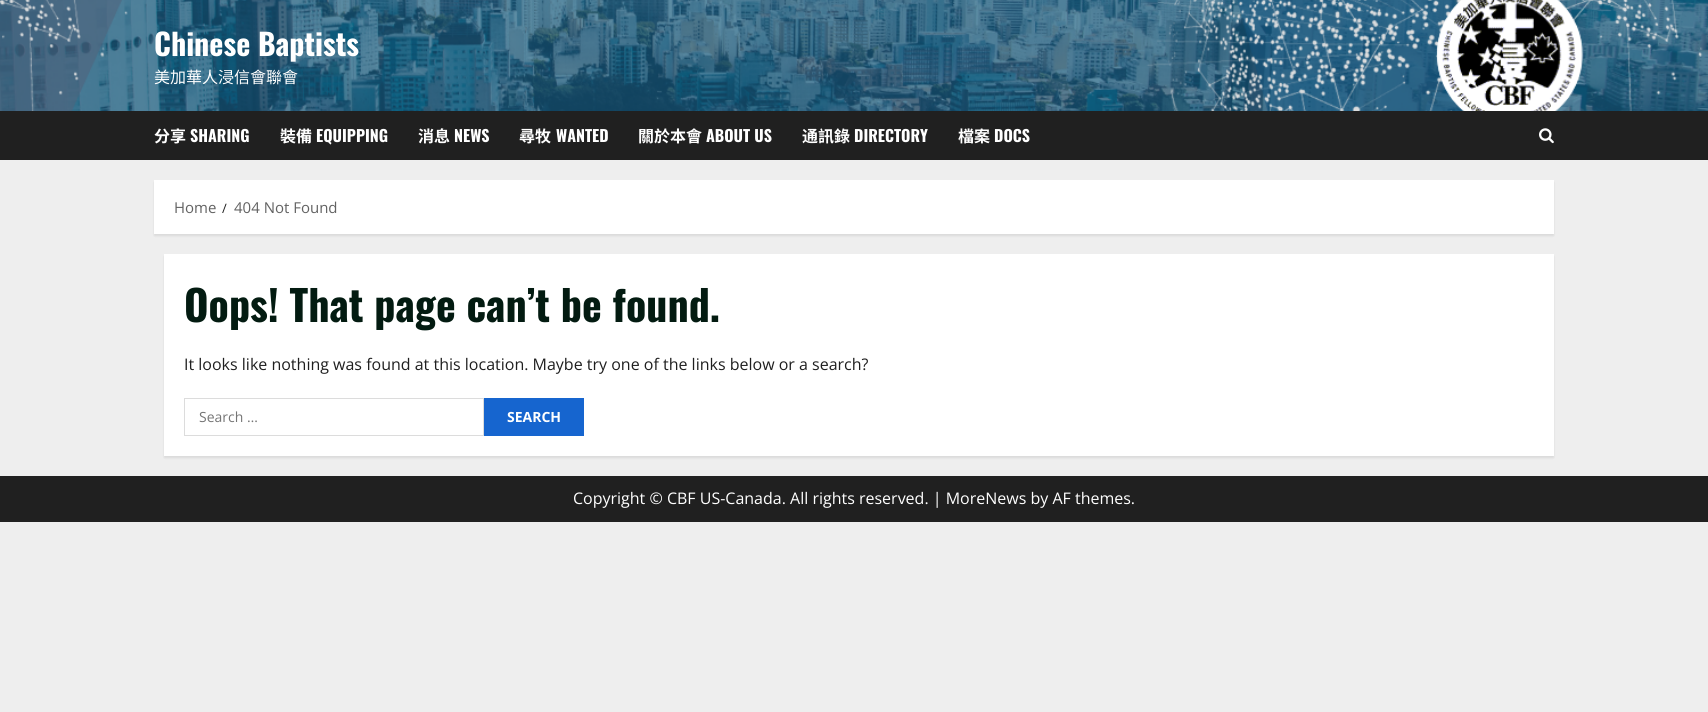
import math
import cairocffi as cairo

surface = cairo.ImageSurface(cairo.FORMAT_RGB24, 1708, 712)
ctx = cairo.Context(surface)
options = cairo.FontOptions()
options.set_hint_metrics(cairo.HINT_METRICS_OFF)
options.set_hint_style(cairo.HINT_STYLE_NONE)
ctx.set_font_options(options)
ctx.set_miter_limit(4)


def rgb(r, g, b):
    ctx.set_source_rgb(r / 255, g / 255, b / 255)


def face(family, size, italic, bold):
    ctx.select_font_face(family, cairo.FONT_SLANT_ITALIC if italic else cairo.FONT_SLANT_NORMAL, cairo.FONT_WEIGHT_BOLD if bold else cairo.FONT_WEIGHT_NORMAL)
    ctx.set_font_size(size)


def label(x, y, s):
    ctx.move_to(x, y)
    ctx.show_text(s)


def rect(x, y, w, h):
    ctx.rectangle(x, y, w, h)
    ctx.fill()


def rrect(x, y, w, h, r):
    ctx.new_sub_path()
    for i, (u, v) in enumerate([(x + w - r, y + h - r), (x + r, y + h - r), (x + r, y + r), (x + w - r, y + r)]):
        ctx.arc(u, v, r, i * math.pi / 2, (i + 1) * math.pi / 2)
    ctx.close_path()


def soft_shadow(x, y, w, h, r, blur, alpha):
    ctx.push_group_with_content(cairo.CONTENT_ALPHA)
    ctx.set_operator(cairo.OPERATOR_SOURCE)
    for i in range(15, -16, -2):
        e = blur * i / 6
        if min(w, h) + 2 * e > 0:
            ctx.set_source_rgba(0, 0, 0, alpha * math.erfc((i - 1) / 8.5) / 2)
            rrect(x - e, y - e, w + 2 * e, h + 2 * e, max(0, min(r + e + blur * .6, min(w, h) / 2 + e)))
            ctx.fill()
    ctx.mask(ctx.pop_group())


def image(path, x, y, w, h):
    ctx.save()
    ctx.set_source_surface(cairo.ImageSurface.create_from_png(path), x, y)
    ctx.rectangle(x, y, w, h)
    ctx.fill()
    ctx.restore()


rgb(238, 238, 238)
ctx.paint()
image('image0.png', 0, 0, 1708, 111)
face('Oswald', 30, 0, 1)
rgb(255, 255, 255)
label(154, 56, 'Chinese Baptists')
face('Noto Sans CJK SC', 16, 0, 0)
label(154, 83, '美加華人浸信會聯會')
rgb(32, 32, 32)
rect(0, 111, 1708, 49)
face('Noto Sans CJK SC', 16, 0, 1)
rgb(255, 255, 255)
label(154, 142, '分享')
face('Oswald', 16, 0, 1)
label(190, 142, 'SHARING')
face('Noto Sans CJK SC', 16, 0, 1)
label(280, 142, '裝備')
face('Oswald', 16, 0, 1)
label(316, 142, 'EQUIPPING')
face('Noto Sans CJK SC', 16, 0, 1)
label(418, 142, '消息')
face('Oswald', 16, 0, 1)
label(454, 142, 'NEWS')
face('Noto Sans CJK SC', 16, 0, 1)
label(519, 142, '尋牧')
face('Oswald', 16, 0, 1)
label(556, 142, 'WANTED')
face('Noto Sans CJK SC', 16, 0, 1)
label(638, 142, '關於本會')
face('Oswald', 16, 0, 1)
label(706, 142, 'ABOUT US')
face('Noto Sans CJK SC', 16, 0, 1)
label(802, 142, '通訊錄')
face('Oswald', 16, 0, 1)
label(854, 142, 'DIRECTORY')
face('Noto Sans CJK SC', 16, 0, 1)
label(958, 142, '檔案')
face('Oswald', 16, 0, 1)
label(994, 142, 'DOCS')
image('image1.png', 1539, 128, 15, 16)
rgb(0, 0, 0)
soft_shadow(154, 182, 1400, 54, 0, 1, 0.08)
rgb(255, 255, 255)
rect(154, 180, 1400, 54)
face('Open Sans', 15, 0, 0)
rgb(98, 98, 98)
label(174, 213, 'Home')
face('Open Sans', 13, 0, 0)
rgb(31, 31, 31)
label(222, 213, '/')
face('Open Sans', 15, 0, 0)
rgb(98, 98, 98)
label(234, 213, '404 Not Found')
rgb(0, 0, 0)
soft_shadow(164, 256, 1390, 202, 0, 1, 0.08)
rgb(255, 255, 255)
rect(164, 254, 1390, 202)
face('Oswald', 42, 0, 1)
rgb(3, 27, 17)
label(184, 322, 'Oops! That page can’t be found.')
face('Open Sans', 16, 0, 0)
rgb(31, 31, 31)
label(184, 370, 'It looks like nothing was found at this location. Maybe try one of the links below or a search?')
ctx.rectangle(184.5, 398.5, 299, 37)
rgb(220, 220, 220)
ctx.set_line_width(1)
ctx.stroke()
face('Open Sans', 14, 0, 0)
rgb(117, 117, 117)
label(199, 422, 'Search …')
rgb(22, 101, 207)
rect(484, 398, 100, 38)
face('Open Sans', 14, 0, 1)
rgb(255, 255, 255)
label(507, 422, 'SEARCH')
rgb(32, 32, 32)
rect(0, 476, 1708, 46)
face('Open Sans', 16, 0, 0)
rgb(255, 255, 255)
label(573, 504, 'Copyright © CBF US-Canada. All rights reserved. | MoreNews by AF themes.')
surface.write_to_png('render.png')
